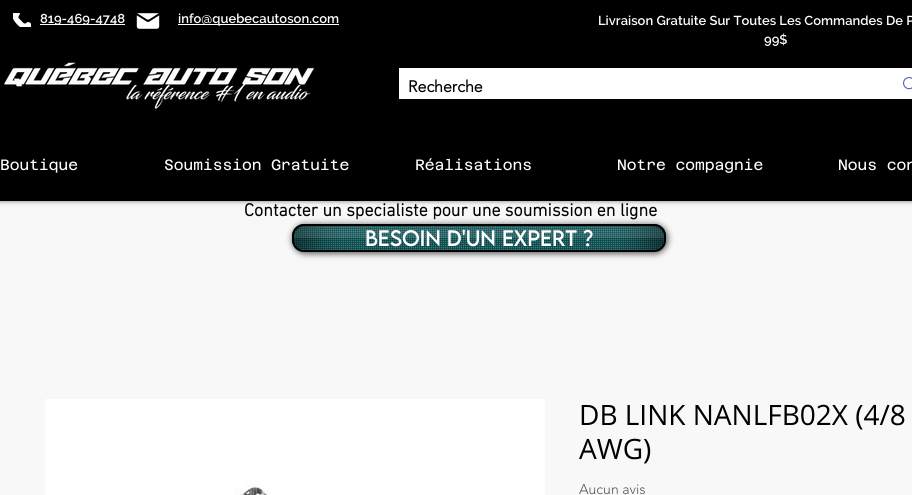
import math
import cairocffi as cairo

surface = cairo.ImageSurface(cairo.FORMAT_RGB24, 912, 495)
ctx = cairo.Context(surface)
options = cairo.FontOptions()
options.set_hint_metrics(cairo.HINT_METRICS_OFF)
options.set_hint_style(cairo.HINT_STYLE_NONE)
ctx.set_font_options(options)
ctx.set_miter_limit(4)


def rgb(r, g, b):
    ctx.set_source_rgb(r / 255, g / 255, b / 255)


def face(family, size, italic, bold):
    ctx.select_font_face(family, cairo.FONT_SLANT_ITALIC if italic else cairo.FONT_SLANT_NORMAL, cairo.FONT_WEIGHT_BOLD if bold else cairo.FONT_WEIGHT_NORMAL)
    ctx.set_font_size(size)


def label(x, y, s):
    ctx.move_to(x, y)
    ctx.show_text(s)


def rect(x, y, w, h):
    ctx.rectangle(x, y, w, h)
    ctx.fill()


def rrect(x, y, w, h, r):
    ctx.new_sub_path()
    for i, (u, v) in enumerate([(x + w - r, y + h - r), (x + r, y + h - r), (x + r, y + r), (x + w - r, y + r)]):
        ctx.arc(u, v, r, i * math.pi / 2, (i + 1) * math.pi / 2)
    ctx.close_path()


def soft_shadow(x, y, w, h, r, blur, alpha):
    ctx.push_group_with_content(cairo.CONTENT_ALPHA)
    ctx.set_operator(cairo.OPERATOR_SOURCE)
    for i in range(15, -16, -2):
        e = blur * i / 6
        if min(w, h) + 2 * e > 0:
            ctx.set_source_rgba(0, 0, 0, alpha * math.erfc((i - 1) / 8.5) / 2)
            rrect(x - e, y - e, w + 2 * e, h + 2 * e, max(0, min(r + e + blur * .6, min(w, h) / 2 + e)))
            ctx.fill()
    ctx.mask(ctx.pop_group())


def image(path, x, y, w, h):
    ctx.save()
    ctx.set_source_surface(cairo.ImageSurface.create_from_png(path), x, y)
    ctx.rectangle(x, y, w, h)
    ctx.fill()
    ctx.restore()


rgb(248, 248, 248)
ctx.paint()
rgb(0, 0, 0)
soft_shadow(0, 0, 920, 201, 0, 2.5, 0.5)
rgb(0, 0, 0)
rect(0, 0, 912, 201)
image('image0.png', 13, 13, 18, 14)
rgb(250, 250, 250)
rect(40, 24, 85, 1)
face('Raleway SemiBold', 13, 0, 0)
rgb(255, 255, 255)
label(40, 23, '819-469-4748')
image('image1.png', 136, 13, 24, 16)
rect(178, 24, 161, 1)
label(178, 23, 'info@quebecautoson.com')
label(598, 25, 'Livraison Gratuite Sur Toutes Les Commandes De P')
label(764, 44, '99$')
image('image2.png', 4, 62, 311, 47)
ctx.rectangle(399.5, 68.5, 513, 30)
ctx.set_line_width(1)
ctx.stroke()
rect(400, 69, 512, 29)
face('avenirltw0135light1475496', 16, 0, 1)
rgb(0, 0, 0)
label(408, 92, 'Recherche')
image('image3.png', 903, 77, 9, 13)
face('Azeret Mono', 15, 0, 0)
rgb(255, 255, 255)
label(0, 170, 'Boutique')
label(164, 170, 'Soumission Gratuite')
label(415, 170, 'Réalisations')
label(617, 170, 'Notre compagnie')
label(838, 170, 'Nous con')
face('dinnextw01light', 18, 0, 1)
rgb(0, 0, 0)
label(244, 216, 'Contacter un specialiste pour une soumission en ligne')
rgb(0, 0, 0)
soft_shadow(292, 224, 376, 30, 13, 3, 0.6)
rgb(42, 129, 132)
rrect(292, 224, 374, 28, 12)
ctx.fill()
image('image4.png', 292, 224, 374, 28)
rrect(293, 225, 372, 26, 11)
rgb(0, 0, 0)
ctx.set_line_width(2)
ctx.stroke()
image('image5.png', 294, 226, 46, 24)
face('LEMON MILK', 20, 0, 0)
rgb(255, 255, 255)
label(365, 246, 'BESOIN D\'UN EXPERT ?')
image('image7.png', 619, 226, 45, 24)
image('image6.png', 294, 226, 370, 12)
image('image8.png', 45, 399, 500, 96)
face('Open Sans', 28, 0, 0)
rgb(0, 0, 0)
label(579, 425, 'DB LINK NANLFB02X (4/8')
label(579, 459, 'AWG)')
face('avenirltw0135light1475496 Light', 14, 0, 0)
rgb(88, 85, 81)
label(579, 494, 'Aucun avis')
surface.write_to_png('render.png')
